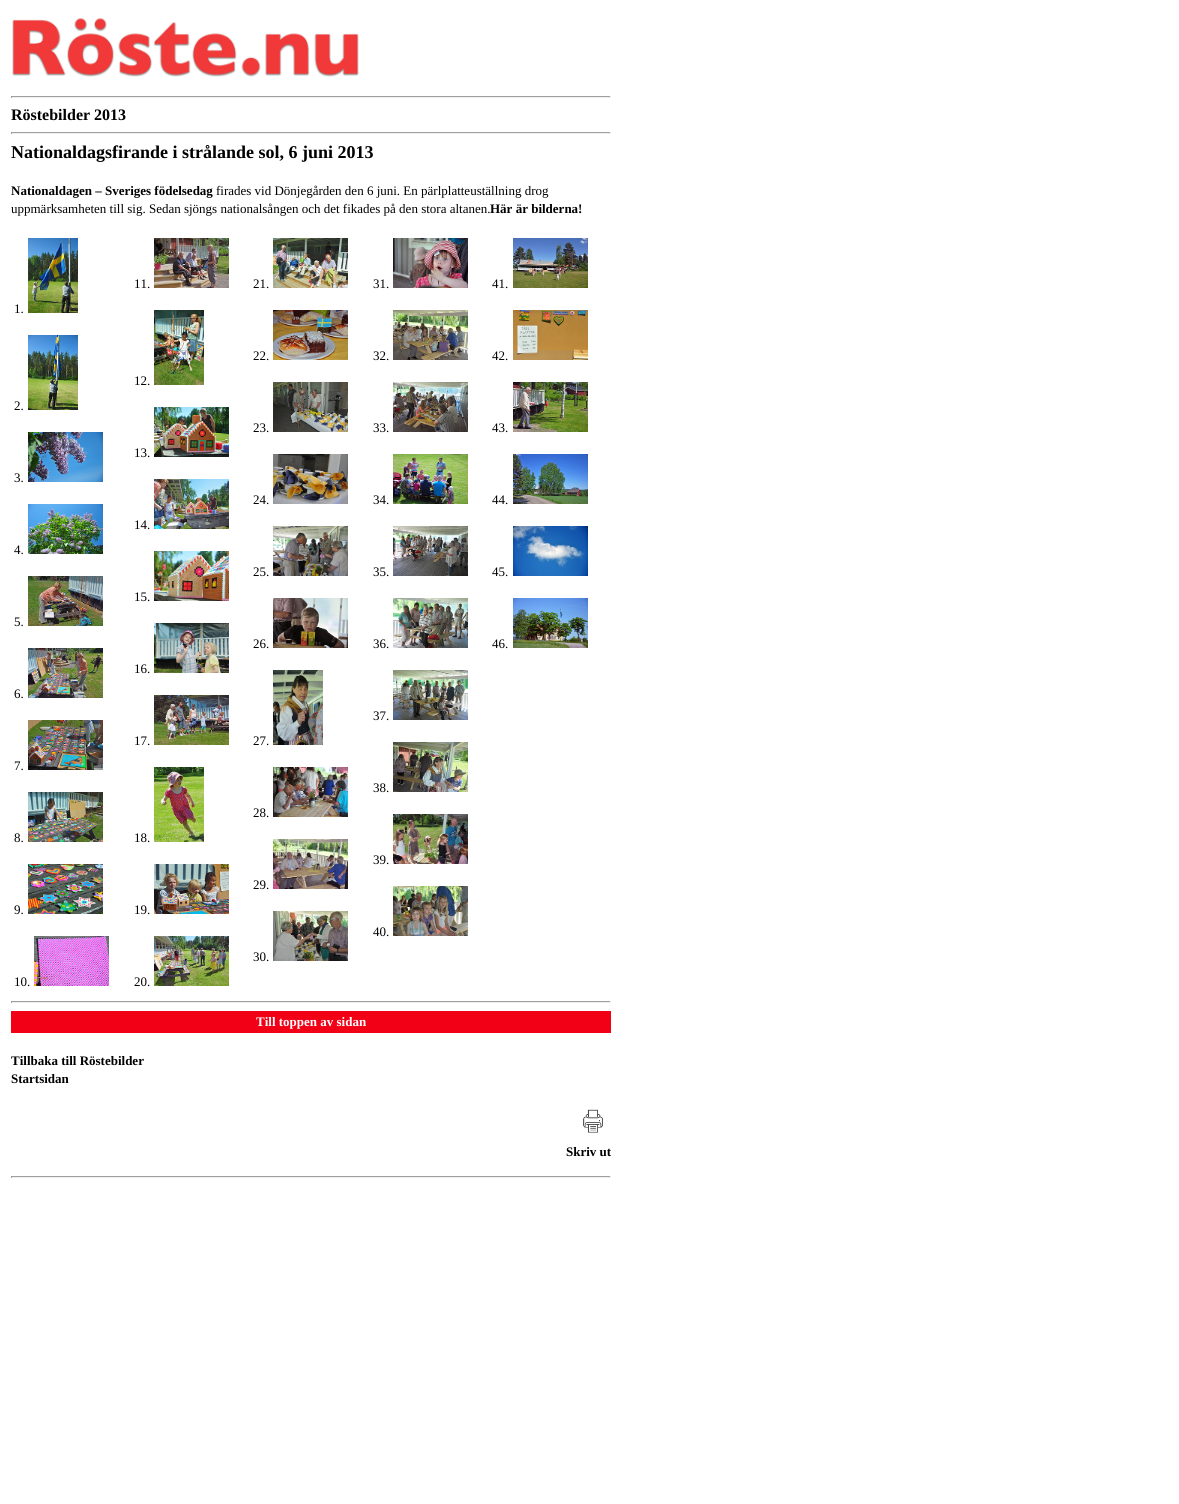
import math
import cairocffi as cairo

surface = cairo.ImageSurface(cairo.FORMAT_RGB24, 1179, 1504)
ctx = cairo.Context(surface)
options = cairo.FontOptions()
options.set_hint_metrics(cairo.HINT_METRICS_OFF)
options.set_hint_style(cairo.HINT_STYLE_NONE)
ctx.set_font_options(options)
ctx.set_miter_limit(4)


def rgb(r, g, b):
    ctx.set_source_rgb(r / 255, g / 255, b / 255)


def face(family, size, italic, bold):
    ctx.select_font_face(family, cairo.FONT_SLANT_ITALIC if italic else cairo.FONT_SLANT_NORMAL, cairo.FONT_WEIGHT_BOLD if bold else cairo.FONT_WEIGHT_NORMAL)
    ctx.set_font_size(size)


def label(x, y, s):
    ctx.move_to(x, y)
    ctx.show_text(s)


def rect(x, y, w, h):
    ctx.rectangle(x, y, w, h)
    ctx.fill()


def image(path, x, y, w, h):
    ctx.save()
    ctx.set_source_surface(cairo.ImageSurface.create_from_png(path), x, y)
    ctx.rectangle(x, y, w, h)
    ctx.fill()
    ctx.restore()


rgb(255, 255, 255)
ctx.paint()
image('image0.png', 12, 18, 347, 59)
rgb(159, 159, 159)
rect(11, 96, 600, 1)
rgb(238, 238, 238)
rect(610, 96, 1, 2)
rect(11, 97, 600, 1)
rgb(159, 159, 159)
rect(11, 96, 1, 2)
face('Liberation Serif', 16, 0, 1)
rgb(0, 0, 0)
label(11, 120, 'Röstebilder 2013')
rgb(159, 159, 159)
rect(11, 132, 600, 1)
rgb(238, 238, 238)
rect(610, 132, 1, 2)
rect(11, 133, 600, 1)
rgb(159, 159, 159)
rect(11, 132, 1, 2)
face('Liberation Serif', 18, 0, 1)
rgb(0, 0, 0)
label(11, 158, 'Nationaldagsfirande i strålande sol, 6 juni 2013')
face('Liberation Serif', 13, 0, 1)
label(11, 195, 'Nationaldagen – Sveriges födelsedag')
face('Liberation Serif', 13, 0, 0)
label(216, 195, 'firades vid Dönjegården den 6 juni. En pärlplatteuställning drog')
label(11, 213, 'uppmärksamheten till sig. Sedan sjöngs nationalsången och det fikades på den stora altanen.')
face('Liberation Serif', 13, 0, 1)
label(490, 213, 'Här är bilderna!')
face('Liberation Serif', 13, 0, 0)
label(14, 313, '1.')
image('image1.png', 28, 238, 50, 75)
label(14, 410, '2.')
image('image2.png', 28, 335, 50, 75)
label(14, 482, '3.')
image('image3.png', 28, 432, 75, 50)
label(14, 554, '4.')
image('image4.png', 28, 504, 75, 50)
label(14, 626, '5.')
image('image5.png', 28, 576, 75, 50)
label(14, 698, '6.')
image('image6.png', 28, 648, 75, 50)
label(14, 770, '7.')
image('image7.png', 28, 720, 75, 50)
label(14, 842, '8.')
image('image8.png', 28, 792, 75, 50)
label(14, 914, '9.')
image('image9.png', 28, 864, 75, 50)
label(14, 986, '10.')
image('image10.png', 34, 936, 75, 50)
label(134, 288, '11.')
image('image11.png', 154, 238, 75, 50)
label(134, 385, '12.')
image('image12.png', 154, 310, 50, 75)
label(134, 457, '13.')
image('image13.png', 154, 407, 75, 50)
label(134, 529, '14.')
image('image14.png', 154, 479, 75, 50)
label(134, 601, '15.')
image('image15.png', 154, 551, 75, 50)
label(134, 673, '16.')
image('image16.png', 154, 623, 75, 50)
label(134, 745, '17.')
image('image17.png', 154, 695, 75, 50)
label(134, 842, '18.')
image('image18.png', 154, 767, 50, 75)
label(134, 914, '19.')
image('image19.png', 154, 864, 75, 50)
label(134, 986, '20.')
image('image20.png', 154, 936, 75, 50)
label(253, 288, '21.')
image('image21.png', 273, 238, 75, 50)
label(253, 360, '22.')
image('image22.png', 273, 310, 75, 50)
label(253, 432, '23.')
image('image23.png', 273, 382, 75, 50)
label(253, 504, '24.')
image('image24.png', 273, 454, 75, 50)
label(253, 576, '25.')
image('image25.png', 273, 526, 75, 50)
label(253, 648, '26.')
image('image26.png', 273, 598, 75, 50)
label(253, 745, '27.')
image('image27.png', 273, 670, 50, 75)
label(253, 817, '28.')
image('image28.png', 273, 767, 75, 50)
label(253, 889, '29.')
image('image29.png', 273, 839, 75, 50)
label(253, 961, '30.')
image('image30.png', 273, 911, 75, 50)
label(373, 288, '31.')
image('image31.png', 393, 238, 75, 50)
label(373, 360, '32.')
image('image32.png', 393, 310, 75, 50)
label(373, 432, '33.')
image('image33.png', 393, 382, 75, 50)
label(373, 504, '34.')
image('image34.png', 393, 454, 75, 50)
label(373, 576, '35.')
image('image35.png', 393, 526, 75, 50)
label(373, 648, '36.')
image('image36.png', 393, 598, 75, 50)
label(373, 720, '37.')
image('image37.png', 393, 670, 75, 50)
label(373, 792, '38.')
image('image38.png', 393, 742, 75, 50)
label(373, 864, '39.')
image('image39.png', 393, 814, 75, 50)
label(373, 936, '40.')
image('image40.png', 393, 886, 75, 50)
label(492, 288, '41.')
image('image41.png', 513, 238, 75, 50)
label(492, 360, '42.')
image('image42.png', 513, 310, 75, 50)
label(492, 432, '43.')
image('image43.png', 513, 382, 75, 50)
label(492, 504, '44.')
image('image44.png', 513, 454, 75, 50)
label(492, 576, '45.')
image('image45.png', 513, 526, 75, 50)
label(492, 648, '46.')
image('image46.png', 513, 598, 75, 50)
rgb(159, 159, 159)
rect(11, 1001, 600, 1)
rgb(238, 238, 238)
rect(610, 1001, 1, 2)
rect(11, 1002, 600, 1)
rgb(159, 159, 159)
rect(11, 1001, 1, 2)
rgb(242, 0, 21)
rect(11, 1011, 600, 22)
face('Liberation Serif', 13, 0, 1)
rgb(255, 255, 255)
label(256, 1026, 'Till toppen av sidan')
rgb(0, 0, 0)
label(11, 1065, 'Tillbaka till Röstebilder')
label(11, 1083, 'Startsidan')
image('image47.png', 583, 1109, 20, 24)
label(566, 1156, 'Skriv ut')
rgb(159, 159, 159)
rect(11, 1176, 600, 1)
rgb(238, 238, 238)
rect(610, 1176, 1, 2)
rect(11, 1177, 600, 1)
rgb(159, 159, 159)
rect(11, 1176, 1, 2)
surface.write_to_png('render.png')
